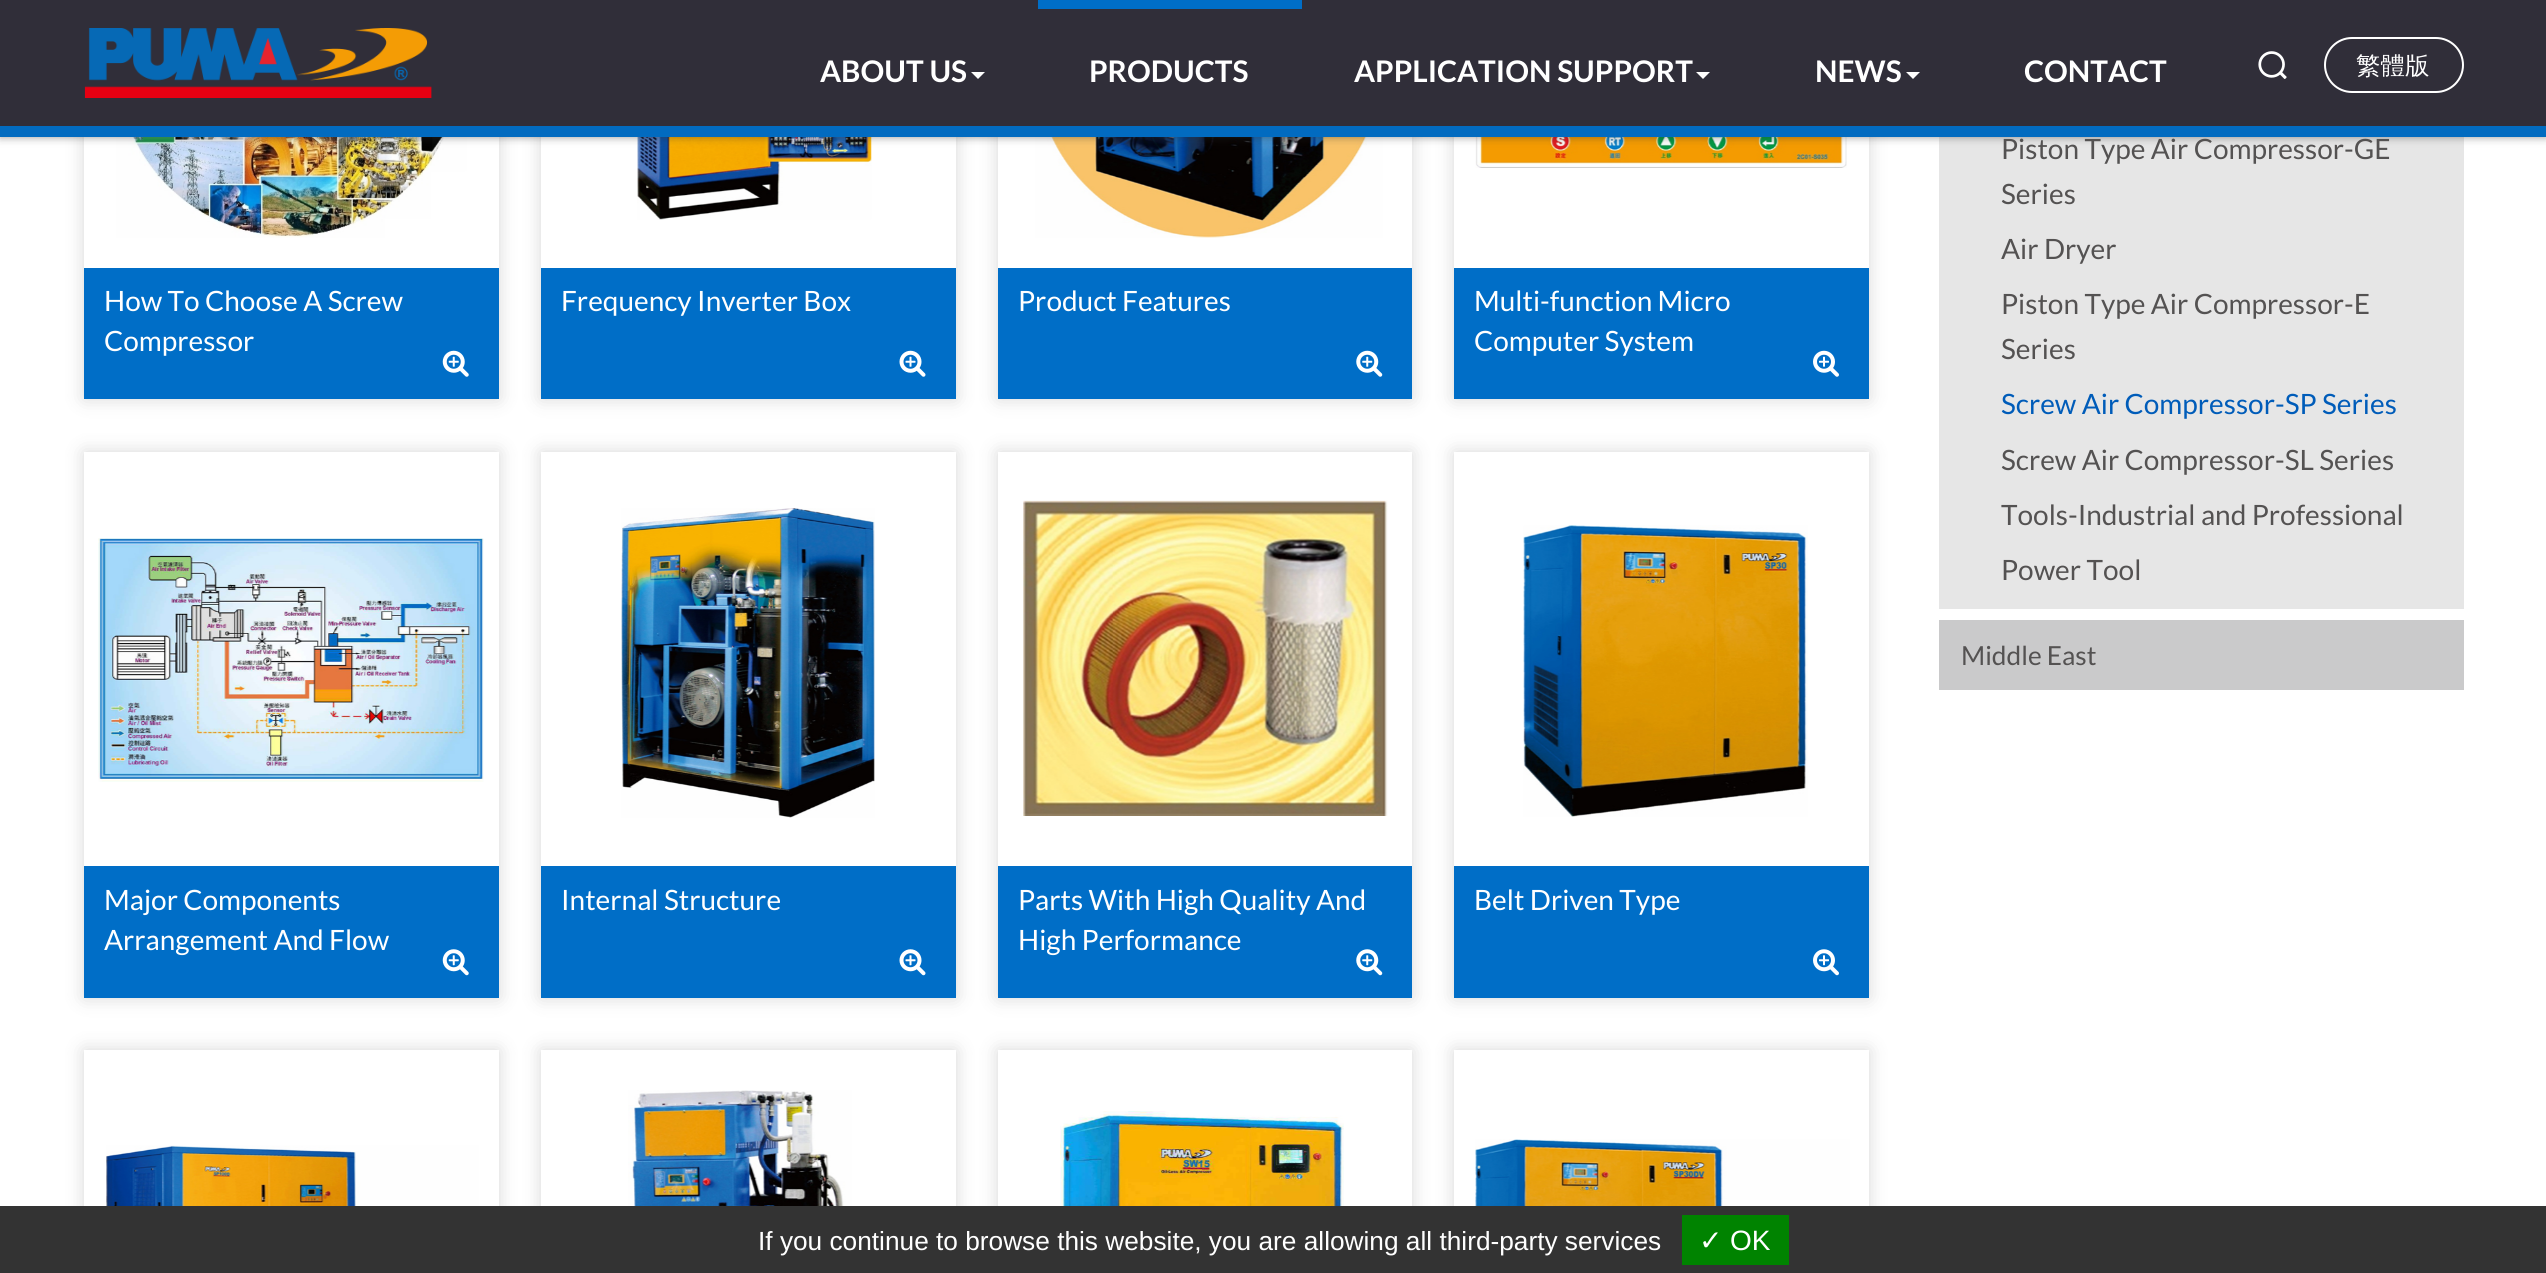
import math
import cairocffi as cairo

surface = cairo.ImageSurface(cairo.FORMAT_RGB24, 2546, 1273)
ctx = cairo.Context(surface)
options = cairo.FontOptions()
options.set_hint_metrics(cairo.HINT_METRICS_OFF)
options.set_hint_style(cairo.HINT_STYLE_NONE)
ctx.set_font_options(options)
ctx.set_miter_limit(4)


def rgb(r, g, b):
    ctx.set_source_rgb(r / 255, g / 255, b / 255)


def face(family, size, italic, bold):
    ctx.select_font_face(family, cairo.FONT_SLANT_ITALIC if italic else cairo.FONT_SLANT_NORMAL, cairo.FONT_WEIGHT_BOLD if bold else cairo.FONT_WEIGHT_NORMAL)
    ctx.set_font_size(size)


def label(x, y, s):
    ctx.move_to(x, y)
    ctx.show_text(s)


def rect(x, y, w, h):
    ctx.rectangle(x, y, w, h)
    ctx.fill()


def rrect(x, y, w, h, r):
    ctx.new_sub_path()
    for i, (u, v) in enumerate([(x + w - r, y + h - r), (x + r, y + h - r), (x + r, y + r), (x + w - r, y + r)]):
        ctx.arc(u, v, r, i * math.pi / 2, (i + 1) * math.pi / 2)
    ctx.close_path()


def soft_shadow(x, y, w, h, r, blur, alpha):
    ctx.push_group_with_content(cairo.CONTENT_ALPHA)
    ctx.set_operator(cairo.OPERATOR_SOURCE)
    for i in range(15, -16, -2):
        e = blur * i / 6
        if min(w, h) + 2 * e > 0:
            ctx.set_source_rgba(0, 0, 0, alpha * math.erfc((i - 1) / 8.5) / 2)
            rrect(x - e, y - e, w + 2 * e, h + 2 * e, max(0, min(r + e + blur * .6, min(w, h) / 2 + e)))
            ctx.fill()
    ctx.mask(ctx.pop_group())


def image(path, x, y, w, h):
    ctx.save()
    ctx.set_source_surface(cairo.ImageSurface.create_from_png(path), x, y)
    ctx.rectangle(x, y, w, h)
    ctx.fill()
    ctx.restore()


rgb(255, 255, 255)
ctx.paint()
rgb(50, 50, 50)
soft_shadow(84, -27, 415, 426, 0, 9, 0.2)
rgb(255, 255, 255)
rect(84, 137, 415, 131)
image('image2.png', 116, 137, 351, 101)
rgb(50, 50, 50)
soft_shadow(541, -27, 415, 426, 0, 9, 0.2)
rgb(255, 255, 255)
rect(541, 137, 415, 131)
image('image4.png', 637, 137, 235, 83)
ctx.save()
ctx.set_fill_rule(cairo.FILL_RULE_EVEN_ODD)
ctx.new_path()
ctx.move_to(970, 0)
ctx.line_to(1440, 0)
ctx.line_to(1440, 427)
ctx.line_to(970, 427)
ctx.close_path()
ctx.move_to(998, -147)
ctx.line_to(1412, -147)
ctx.line_to(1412, 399)
ctx.line_to(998, 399)
ctx.close_path()
ctx.clip()
rgb(50, 50, 50)
soft_shadow(998, -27, 414, 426, 0, 9, 0.2)
ctx.restore()
image('image6.png', 1035, 137, 348, 101)
rgb(50, 50, 50)
soft_shadow(1454, -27, 415, 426, 0, 9, 0.2)
rgb(255, 255, 255)
rect(1454, 137, 415, 131)
image('image8.png', 1475, 137, 372, 31)
rgb(230, 230, 230)
rect(1939, 137, 525, 472)
rgb(50, 50, 50)
soft_shadow(0, 0, 2546, 137, 0, 4.5, 0.5)
rgb(48, 46, 57)
rect(0, 0, 2546, 126)
rgb(2, 107, 192)
rect(0, 126, 2546, 11)
image('image0.png', 84, 28, 348, 70)
face('Lato', 29.75, 0, 1)
rgb(255, 255, 255)
label(820, 82, 'ABOUT US')
rgb(254, 254, 254)
ctx.new_path()
ctx.move_to(971, 72)
ctx.line_to(985, 72)
ctx.line_to(978, 79)
ctx.close_path()
ctx.fill()
rgb(0, 110, 199)
rect(1038, 0, 264, 9)
rgb(255, 255, 255)
label(1089, 82, 'PRODUCTS')
label(1354, 82, 'APPLICATION SUPPORT')
rgb(254, 254, 254)
ctx.new_path()
ctx.move_to(1696, 72)
ctx.line_to(1710, 72)
ctx.line_to(1703, 79)
ctx.close_path()
ctx.fill()
rgb(255, 255, 255)
label(1815, 82, 'NEWS')
rgb(254, 254, 254)
ctx.new_path()
ctx.move_to(1906, 72)
ctx.line_to(1920, 72)
ctx.line_to(1913, 79)
ctx.close_path()
ctx.fill()
rgb(255, 255, 255)
label(2024, 82, 'CONTACT')
image('image1.png', 2258, 51, 29, 28)
rrect(2325, 38, 138, 54, 27)
ctx.stroke()
face('WenQuanYi Zen Hei Medium', 24.5, 0, 0)
label(2356, 74, '繁體版')
rgb(0, 110, 199)
rect(84, 268, 415, 131)
face('Lato', 28, 0, 0)
rgb(255, 255, 255)
label(104, 311, 'How To Choose A Screw')
label(104, 351, 'Compressor')
image('image3.png', 442, 350, 27, 27)
rgb(0, 110, 199)
rect(541, 268, 415, 131)
rgb(255, 255, 255)
label(561, 311, 'Frequency Inverter Box')
image('image5.png', 899, 350, 27, 27)
rgb(0, 110, 199)
rect(998, 268, 414, 131)
rgb(255, 255, 255)
label(1018, 311, 'Product Features')
image('image7.png', 1356, 350, 27, 27)
rgb(0, 110, 199)
rect(1454, 268, 415, 131)
rgb(255, 255, 255)
label(1474, 311, 'Multi-function Micro')
label(1474, 351, 'Computer System')
image('image9.png', 1813, 350, 26, 27)
rgb(50, 50, 50)
soft_shadow(84, 452, 415, 546, 0, 9, 0.2)
rgb(255, 255, 255)
rect(84, 452, 415, 414)
image('image10.png', 98, 538, 386, 244)
rgb(0, 110, 199)
rect(84, 866, 415, 132)
rgb(255, 255, 255)
label(104, 910, 'Major Components')
label(104, 950, 'Arrangement And Flow')
image('image11.png', 442, 949, 27, 27)
rgb(50, 50, 50)
soft_shadow(541, 452, 415, 546, 0, 9, 0.2)
rgb(255, 255, 255)
rect(541, 452, 415, 414)
image('image12.png', 621, 508, 254, 310)
rgb(0, 110, 199)
rect(541, 866, 415, 132)
rgb(255, 255, 255)
label(561, 910, 'Internal Structure')
image('image13.png', 899, 949, 27, 27)
rgb(50, 50, 50)
soft_shadow(998, 452, 414, 546, 0, 9, 0.2)
rgb(255, 255, 255)
rect(998, 452, 414, 414)
image('image14.png', 1023, 500, 365, 316)
rgb(0, 110, 199)
rect(998, 866, 414, 132)
rgb(255, 255, 255)
label(1018, 910, 'Parts With High Quality And')
label(1018, 950, 'High Performance')
image('image15.png', 1356, 949, 27, 27)
rgb(50, 50, 50)
soft_shadow(1454, 452, 415, 546, 0, 9, 0.2)
rgb(255, 255, 255)
rect(1454, 452, 415, 414)
image('image16.png', 1523, 525, 285, 292)
rgb(0, 110, 199)
rect(1454, 866, 415, 132)
rgb(255, 255, 255)
label(1474, 910, 'Belt Driven Type')
image('image17.png', 1813, 949, 26, 27)
rgb(50, 50, 50)
soft_shadow(84, 1050, 415, 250, 0, 9, 0.2)
rgb(255, 255, 255)
rect(84, 1050, 415, 156)
image('image18.png', 106, 1145, 373, 61)
rgb(50, 50, 50)
soft_shadow(541, 1050, 415, 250, 0, 9, 0.2)
rgb(255, 255, 255)
rect(541, 1050, 415, 156)
image('image19.png', 628, 1090, 224, 116)
ctx.save()
ctx.set_fill_rule(cairo.FILL_RULE_EVEN_ODD)
ctx.new_path()
ctx.move_to(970, 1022)
ctx.line_to(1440, 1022)
ctx.line_to(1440, 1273)
ctx.line_to(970, 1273)
ctx.close_path()
ctx.move_to(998, 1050)
ctx.line_to(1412, 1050)
ctx.line_to(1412, 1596)
ctx.line_to(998, 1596)
ctx.close_path()
ctx.clip()
rgb(50, 50, 50)
soft_shadow(998, 1050, 414, 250, 0, 9, 0.2)
ctx.restore()
image('image20.png', 1060, 1111, 284, 95)
rgb(50, 50, 50)
soft_shadow(1454, 1050, 415, 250, 0, 9, 0.2)
rgb(255, 255, 255)
rect(1454, 1050, 415, 156)
image('image21.png', 1475, 1139, 375, 67)
rgb(84, 82, 82)
label(2001, 159, 'Piston Type Air Compressor-GE')
label(2001, 204, 'Series')
label(2001, 259, 'Air Dryer')
label(2001, 314, 'Piston Type Air Compressor-E')
label(2001, 359, 'Series')
rgb(0, 92, 185)
label(2001, 414, 'Screw Air Compressor-SP Series')
rgb(84, 82, 82)
label(2001, 470, 'Screw Air Compressor-SL Series')
label(2001, 525, 'Tools-Industrial and Professional')
label(2001, 580, 'Power Tool')
rgb(202, 202, 203)
rect(1939, 620, 525, 70)
face('Lato', 26.25, 0, 0)
rgb(84, 82, 82)
label(1961, 665, 'Middle East')
rgb(51, 51, 51)
rect(0, 1206, 2546, 67)
face('Liberation Sans', 26.25, 0, 0)
rgb(255, 255, 255)
label(758, 1250, 'If you continue to browse this website, you are allowing all third-party services')
rgb(0, 131, 0)
rect(1682, 1215, 107, 50)
face('DejaVu Sans', 28, 0, 0)
rgb(255, 255, 255)
label(1699, 1250, '✓')
face('Liberation Sans', 28, 0, 0)
label(1730, 1250, 'OK')
surface.write_to_png('render.png')
